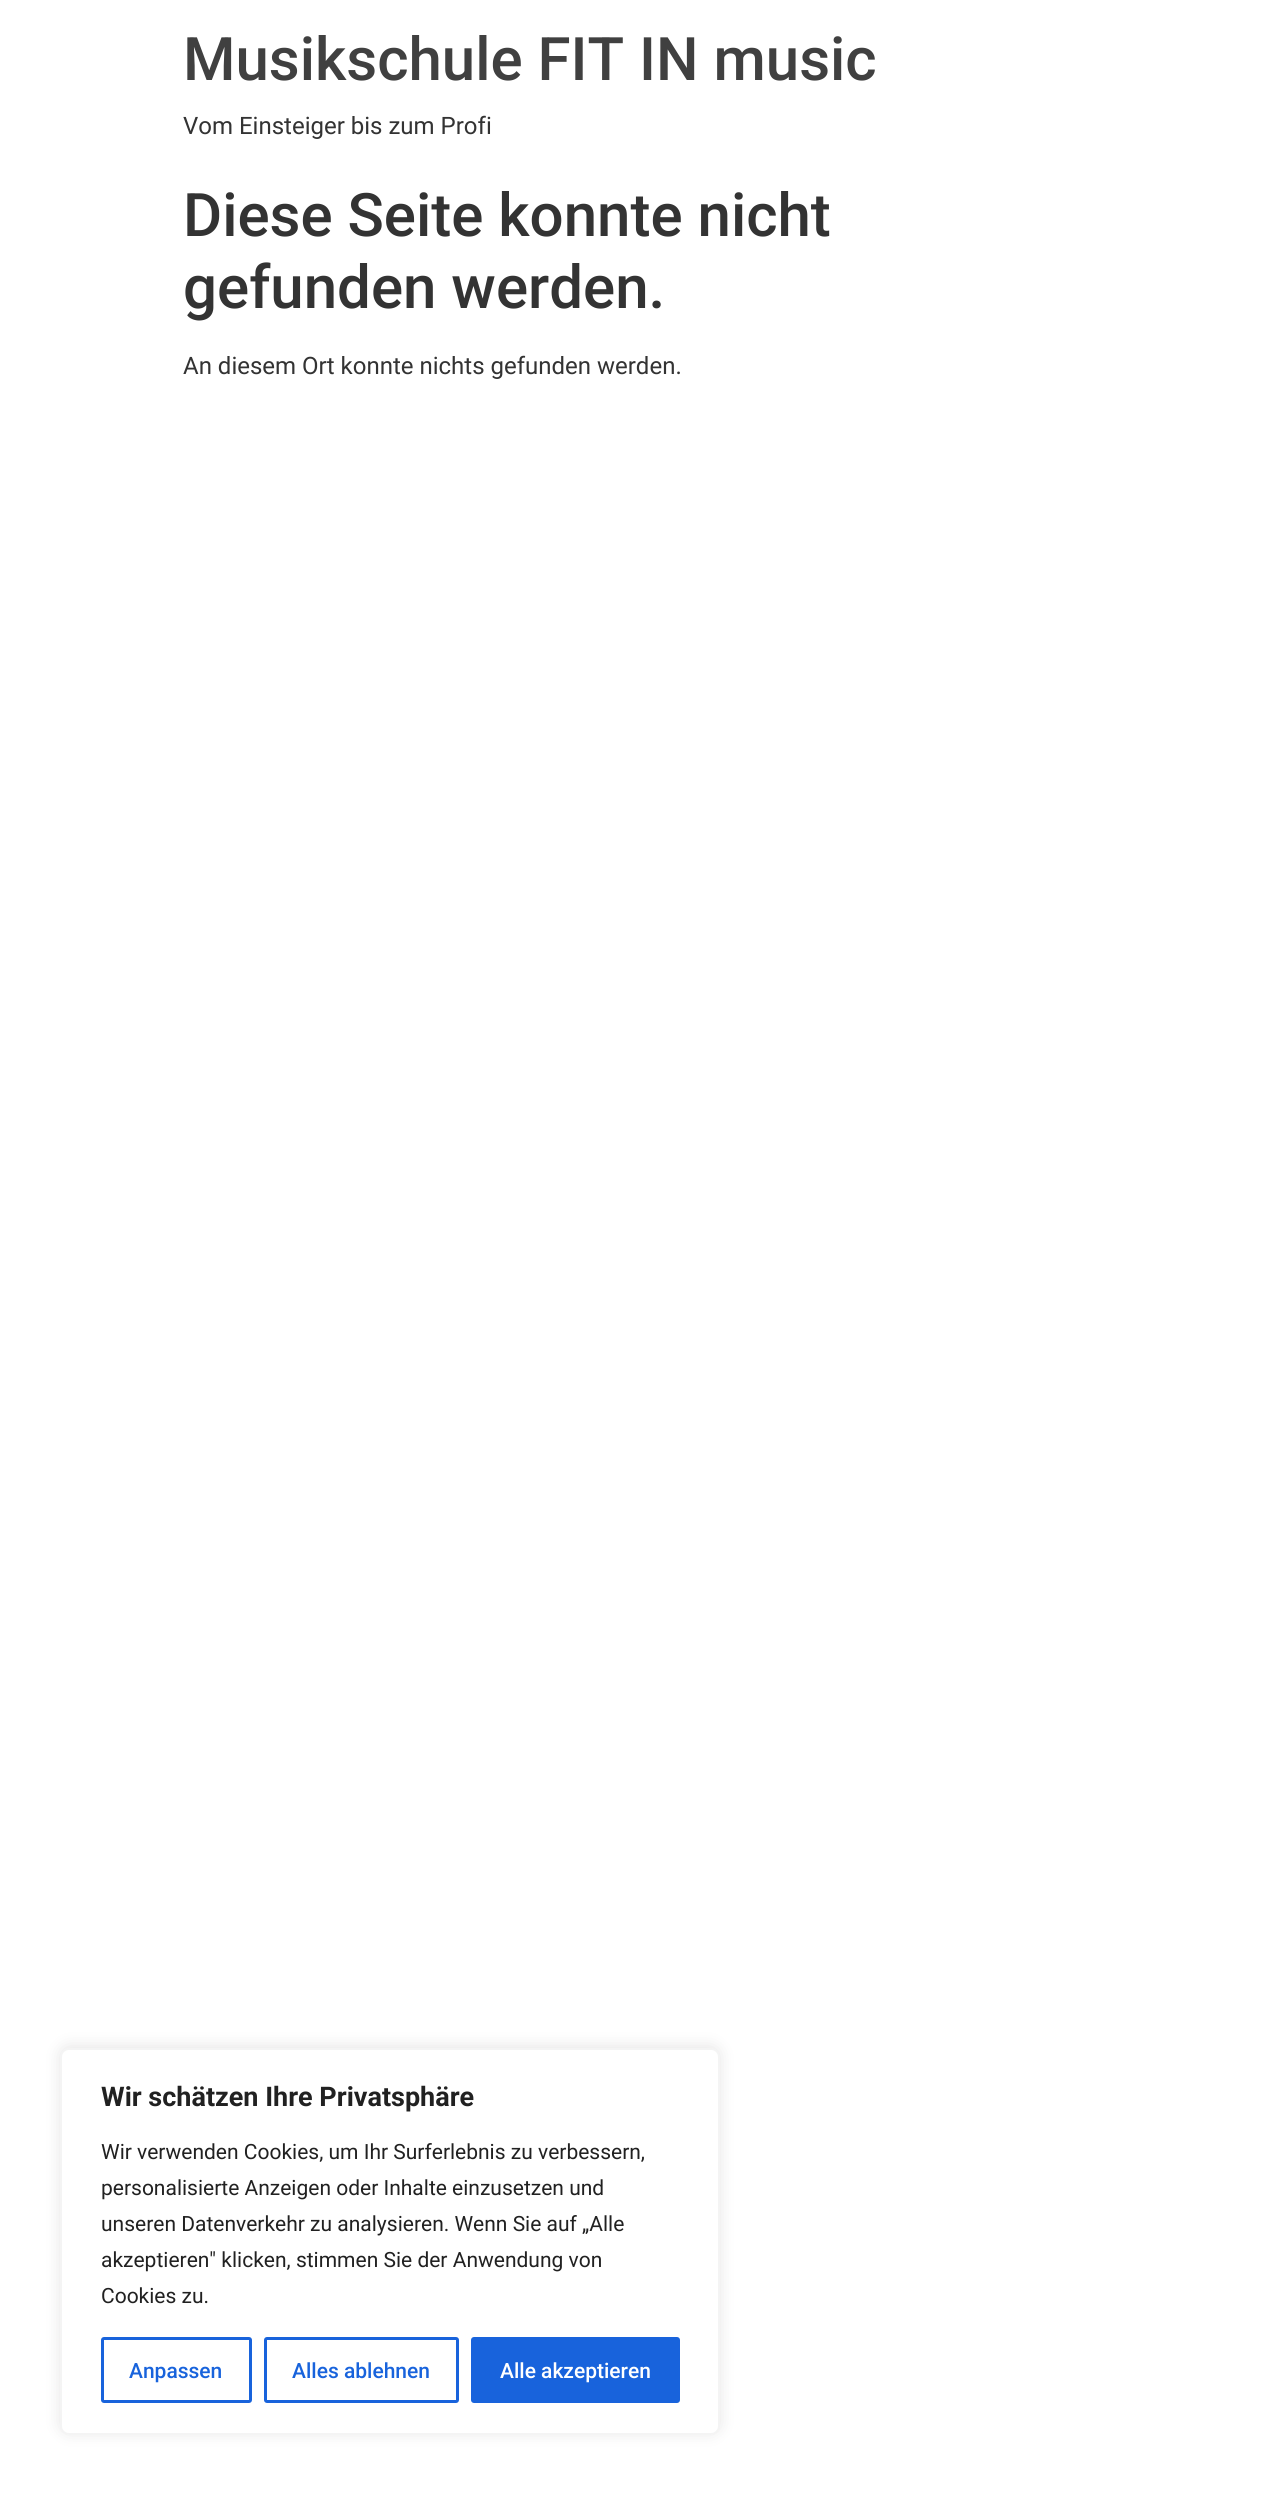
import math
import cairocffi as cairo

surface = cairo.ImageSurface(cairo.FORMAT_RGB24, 1266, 2494)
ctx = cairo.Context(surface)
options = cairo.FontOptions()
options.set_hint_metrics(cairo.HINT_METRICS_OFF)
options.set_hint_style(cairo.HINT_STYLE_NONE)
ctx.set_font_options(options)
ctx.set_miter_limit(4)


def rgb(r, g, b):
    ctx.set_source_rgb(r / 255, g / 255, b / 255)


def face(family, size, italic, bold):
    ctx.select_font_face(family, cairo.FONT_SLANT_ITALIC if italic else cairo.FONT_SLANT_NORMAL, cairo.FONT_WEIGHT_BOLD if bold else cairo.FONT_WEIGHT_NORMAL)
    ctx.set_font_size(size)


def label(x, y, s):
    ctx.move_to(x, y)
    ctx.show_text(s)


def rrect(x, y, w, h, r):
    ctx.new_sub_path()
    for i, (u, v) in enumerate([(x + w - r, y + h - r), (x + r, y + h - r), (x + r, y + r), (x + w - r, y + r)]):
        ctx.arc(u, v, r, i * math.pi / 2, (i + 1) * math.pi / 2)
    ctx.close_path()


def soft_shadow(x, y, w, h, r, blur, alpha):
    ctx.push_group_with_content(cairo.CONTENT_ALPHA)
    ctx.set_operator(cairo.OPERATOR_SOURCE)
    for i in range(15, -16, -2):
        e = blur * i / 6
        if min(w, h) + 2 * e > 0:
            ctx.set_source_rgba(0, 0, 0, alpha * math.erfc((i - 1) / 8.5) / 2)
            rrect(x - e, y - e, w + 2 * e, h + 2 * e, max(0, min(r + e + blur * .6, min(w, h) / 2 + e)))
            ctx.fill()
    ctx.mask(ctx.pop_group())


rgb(255, 255, 255)
ctx.paint()
face('Roboto Medium', 60, 0, 0)
rgb(64, 64, 64)
label(183, 80, 'Musikschule FIT IN music')
face('Roboto', 24, 0, 0)
rgb(51, 51, 51)
label(183, 134, 'Vom Einsteiger bis zum Profi')
face('Roboto Medium', 60, 0, 0)
label(183, 236, 'Diese Seite konnte nicht')
label(183, 308, 'gefunden werden.')
face('Roboto', 24, 0, 0)
label(183, 374, 'An diesem Ort konnte nichts gefunden werden.')
rgb(172, 171, 171)
soft_shadow(60, 2046, 660, 387, 9, 7.5, 0.3)
rgb(255, 255, 255)
rrect(61, 2049, 658, 385, 8)
ctx.fill_preserve()
rgb(244, 244, 244)
ctx.stroke()
face('Roboto', 27, 0, 1)
rgb(33, 33, 33)
label(101, 2106, 'Wir schätzen Ihre Privatsphäre')
face('Roboto', 21, 0, 0)
label(101, 2159, 'Wir verwenden Cookies, um Ihr Surferlebnis zu verbessern,')
label(101, 2195, 'personalisierte Anzeigen oder Inhalte einzusetzen und')
label(101, 2231, 'unseren Datenverkehr zu analysieren. Wenn Sie auf „Alle')
label(101, 2267, 'akzeptieren" klicken, stimmen Sie der Anwendung von')
label(101, 2303, 'Cookies zu.')
rrect(102.5, 2338.5, 148, 63, 1.5)
rgb(24, 99, 220)
ctx.set_line_width(3)
ctx.stroke()
face('Roboto Medium', 21, 0, 0)
label(129, 2378, 'Anpassen')
rrect(265.5, 2338.5, 192, 63, 1.5)
ctx.stroke()
label(292, 2378, 'Alles ablehnen')
rrect(472.5, 2338.5, 206, 63, 1.5)
ctx.fill_preserve()
ctx.stroke()
rgb(255, 255, 255)
label(500, 2378, 'Alle akzeptieren')
surface.write_to_png('render.png')
